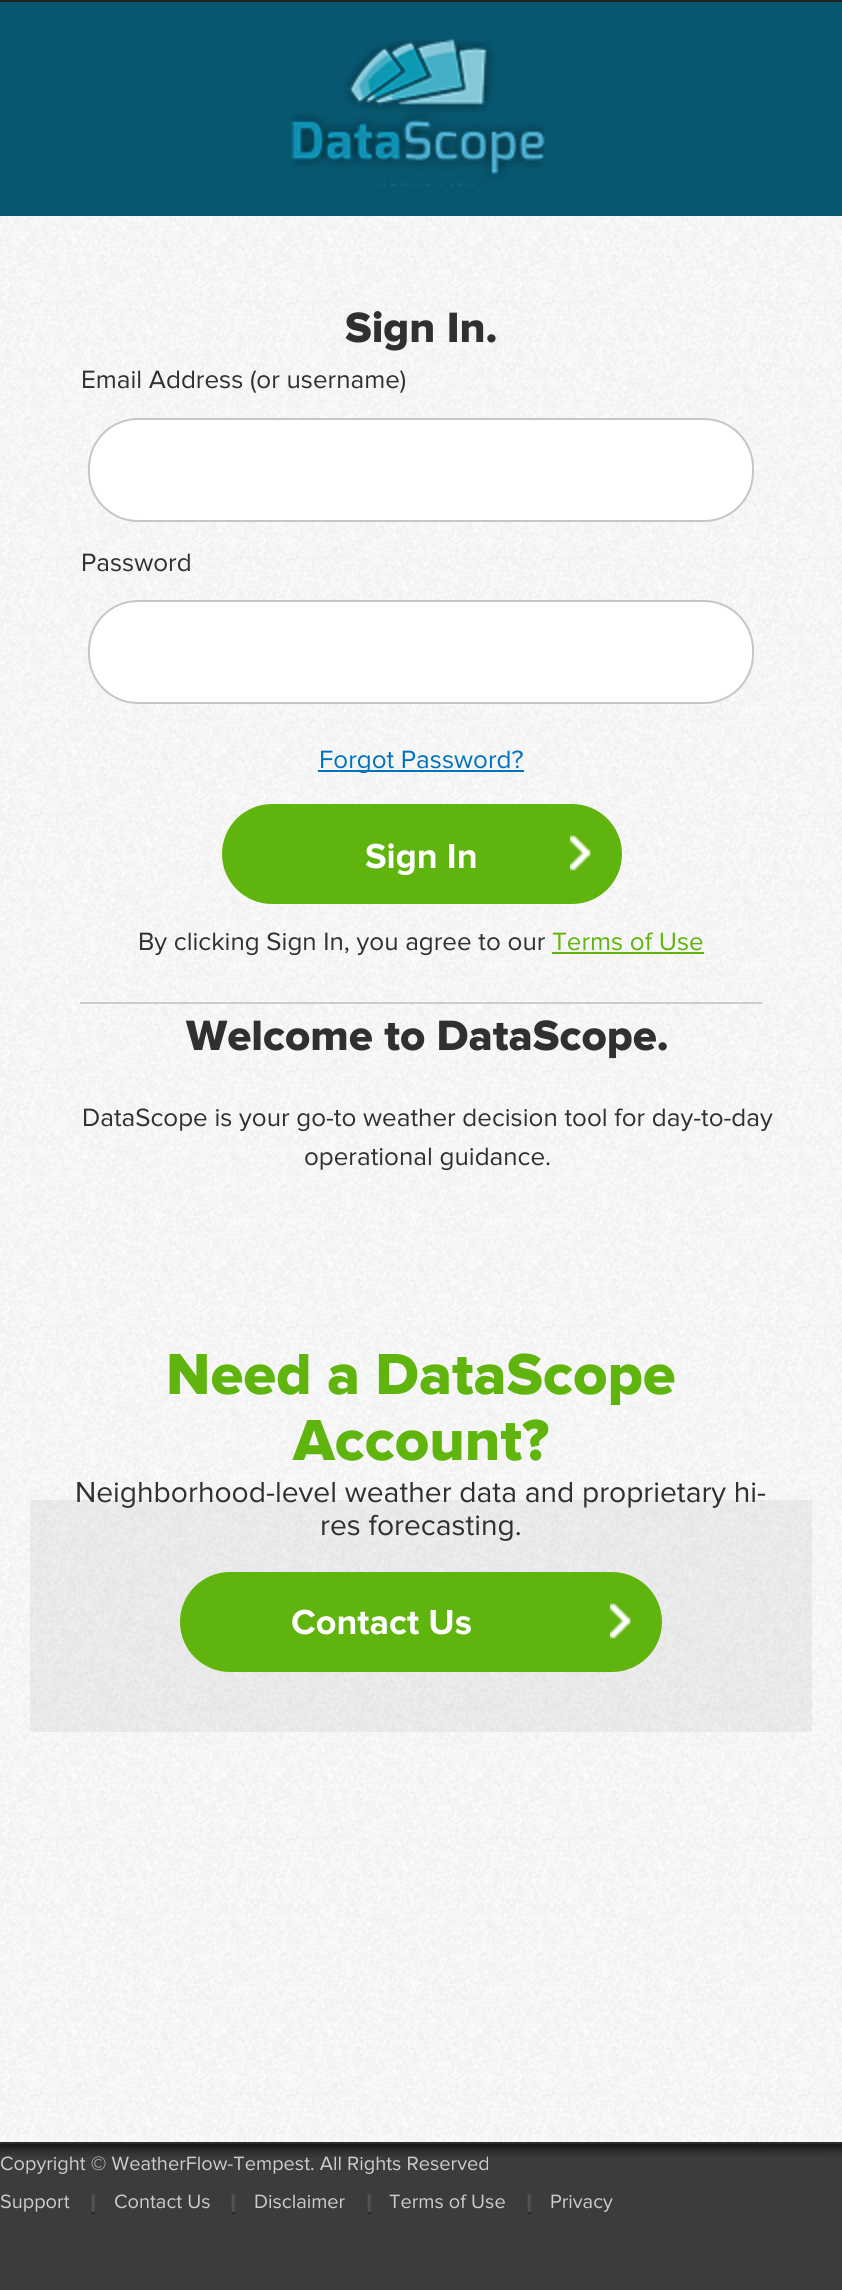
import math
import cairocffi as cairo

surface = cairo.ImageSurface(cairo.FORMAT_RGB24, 842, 2290)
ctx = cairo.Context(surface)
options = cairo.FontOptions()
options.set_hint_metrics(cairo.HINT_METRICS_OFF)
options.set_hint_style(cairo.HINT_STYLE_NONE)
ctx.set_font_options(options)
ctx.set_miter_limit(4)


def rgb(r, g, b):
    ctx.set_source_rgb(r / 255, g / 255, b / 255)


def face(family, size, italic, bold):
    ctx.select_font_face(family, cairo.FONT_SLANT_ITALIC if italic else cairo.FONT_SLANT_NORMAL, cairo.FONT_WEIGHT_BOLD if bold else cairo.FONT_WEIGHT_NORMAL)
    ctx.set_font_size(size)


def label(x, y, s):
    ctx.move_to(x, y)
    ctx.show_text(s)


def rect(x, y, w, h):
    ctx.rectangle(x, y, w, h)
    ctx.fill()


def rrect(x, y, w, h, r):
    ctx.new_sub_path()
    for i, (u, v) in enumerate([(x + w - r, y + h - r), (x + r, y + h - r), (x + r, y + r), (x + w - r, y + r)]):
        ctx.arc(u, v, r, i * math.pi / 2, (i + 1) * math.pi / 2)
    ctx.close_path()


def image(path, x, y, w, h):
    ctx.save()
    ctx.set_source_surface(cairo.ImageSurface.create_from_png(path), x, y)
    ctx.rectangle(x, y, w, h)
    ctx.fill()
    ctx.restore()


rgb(255, 255, 255)
ctx.paint()
image('image0.png', 0, 216, 842, 1926)
rgb(32, 32, 32)
rect(0, 0, 842, 2)
rgb(7, 87, 112)
rect(0, 2, 842, 214)
image('image1.png', 291, 39, 254, 147)
rgb(204, 204, 204)
rect(80, 1002, 682, 2)
face('Proxima Nova ExtraBold', 44, 0, 0)
rgb(48, 48, 48)
label(345, 342, 'Sign In.')
face('Proxima Nova', 26, 0, 0)
label(81, 388, 'Email Address (or username)')
rgb(255, 255, 255)
rrect(89, 419, 664, 102, 49)
ctx.fill_preserve()
rgb(198, 198, 198)
ctx.stroke()
rgb(48, 48, 48)
label(81, 571, 'Password')
rgb(255, 255, 255)
rrect(89, 601, 664, 102, 49)
ctx.fill_preserve()
rgb(198, 198, 198)
ctx.stroke()
rgb(0, 114, 188)
rect(318, 770, 206, 2)
label(319, 768, 'Forgot Password?')
rgb(96, 180, 14)
rrect(222, 804, 400, 100, 50)
ctx.fill()
image('image2.png', 570, 835, 21, 36)
face('Proxima Nova', 36, 0, 1)
rgb(255, 255, 255)
label(365, 868, 'Sign In')
face('Proxima Nova', 26, 0, 0)
rgb(48, 48, 48)
label(138, 950, 'By clicking Sign In, you agree to our')
rgb(96, 180, 14)
label(552, 950, 'Terms of Use')
rect(552, 952, 152, 2)
face('Proxima Nova ExtraBold', 44, 0, 0)
rgb(48, 48, 48)
label(186, 1050, 'Welcome to DataScope.')
face('Proxima Nova', 26, 0, 0)
label(82, 1126, 'DataScope is your go-to weather decision tool for day-to-day')
label(304, 1165, 'operational guidance.')
image('image3.png', 30, 1500, 782, 232)
face('Proxima Nova ExtraBold', 60, 0, 0)
rgb(96, 180, 14)
label(166, 1394, 'Need a DataScope')
label(293, 1460, 'Account?')
face('Proxima Nova', 30, 0, 0)
rgb(48, 48, 48)
label(75, 1502, 'Neighborhood-level weather data and proprietary hi-')
label(320, 1535, 'res forecasting.')
rgb(96, 180, 14)
rrect(180, 1572, 482, 100, 50)
ctx.fill()
image('image2.png', 610, 1603, 21, 36)
face('Proxima Nova', 36, 0, 1)
rgb(255, 255, 255)
label(291, 1634, 'Contact Us')
rgb(60, 60, 60)
rect(0, 2144, 842, 146)
rgb(43, 43, 43)
rect(0, 2142, 842, 2)
image('image4.png', 0, 2144, 842, 13)
face('Proxima Nova', 20, 0, 0)
rgb(204, 204, 204)
label(0, 2170, 'Copyright © WeatherFlow-Tempest. All Rights Reserved')
label(0, 2208, 'Support')
image('image5.png', 91, 2193, 5, 21)
label(114, 2208, 'Contact Us')
image('image5.png', 231, 2193, 5, 21)
label(254, 2208, 'Disclaimer')
image('image5.png', 367, 2193, 5, 21)
label(389, 2208, 'Terms of Use')
image('image5.png', 527, 2193, 5, 21)
label(550, 2208, 'Privacy')
surface.write_to_png('render.png')
